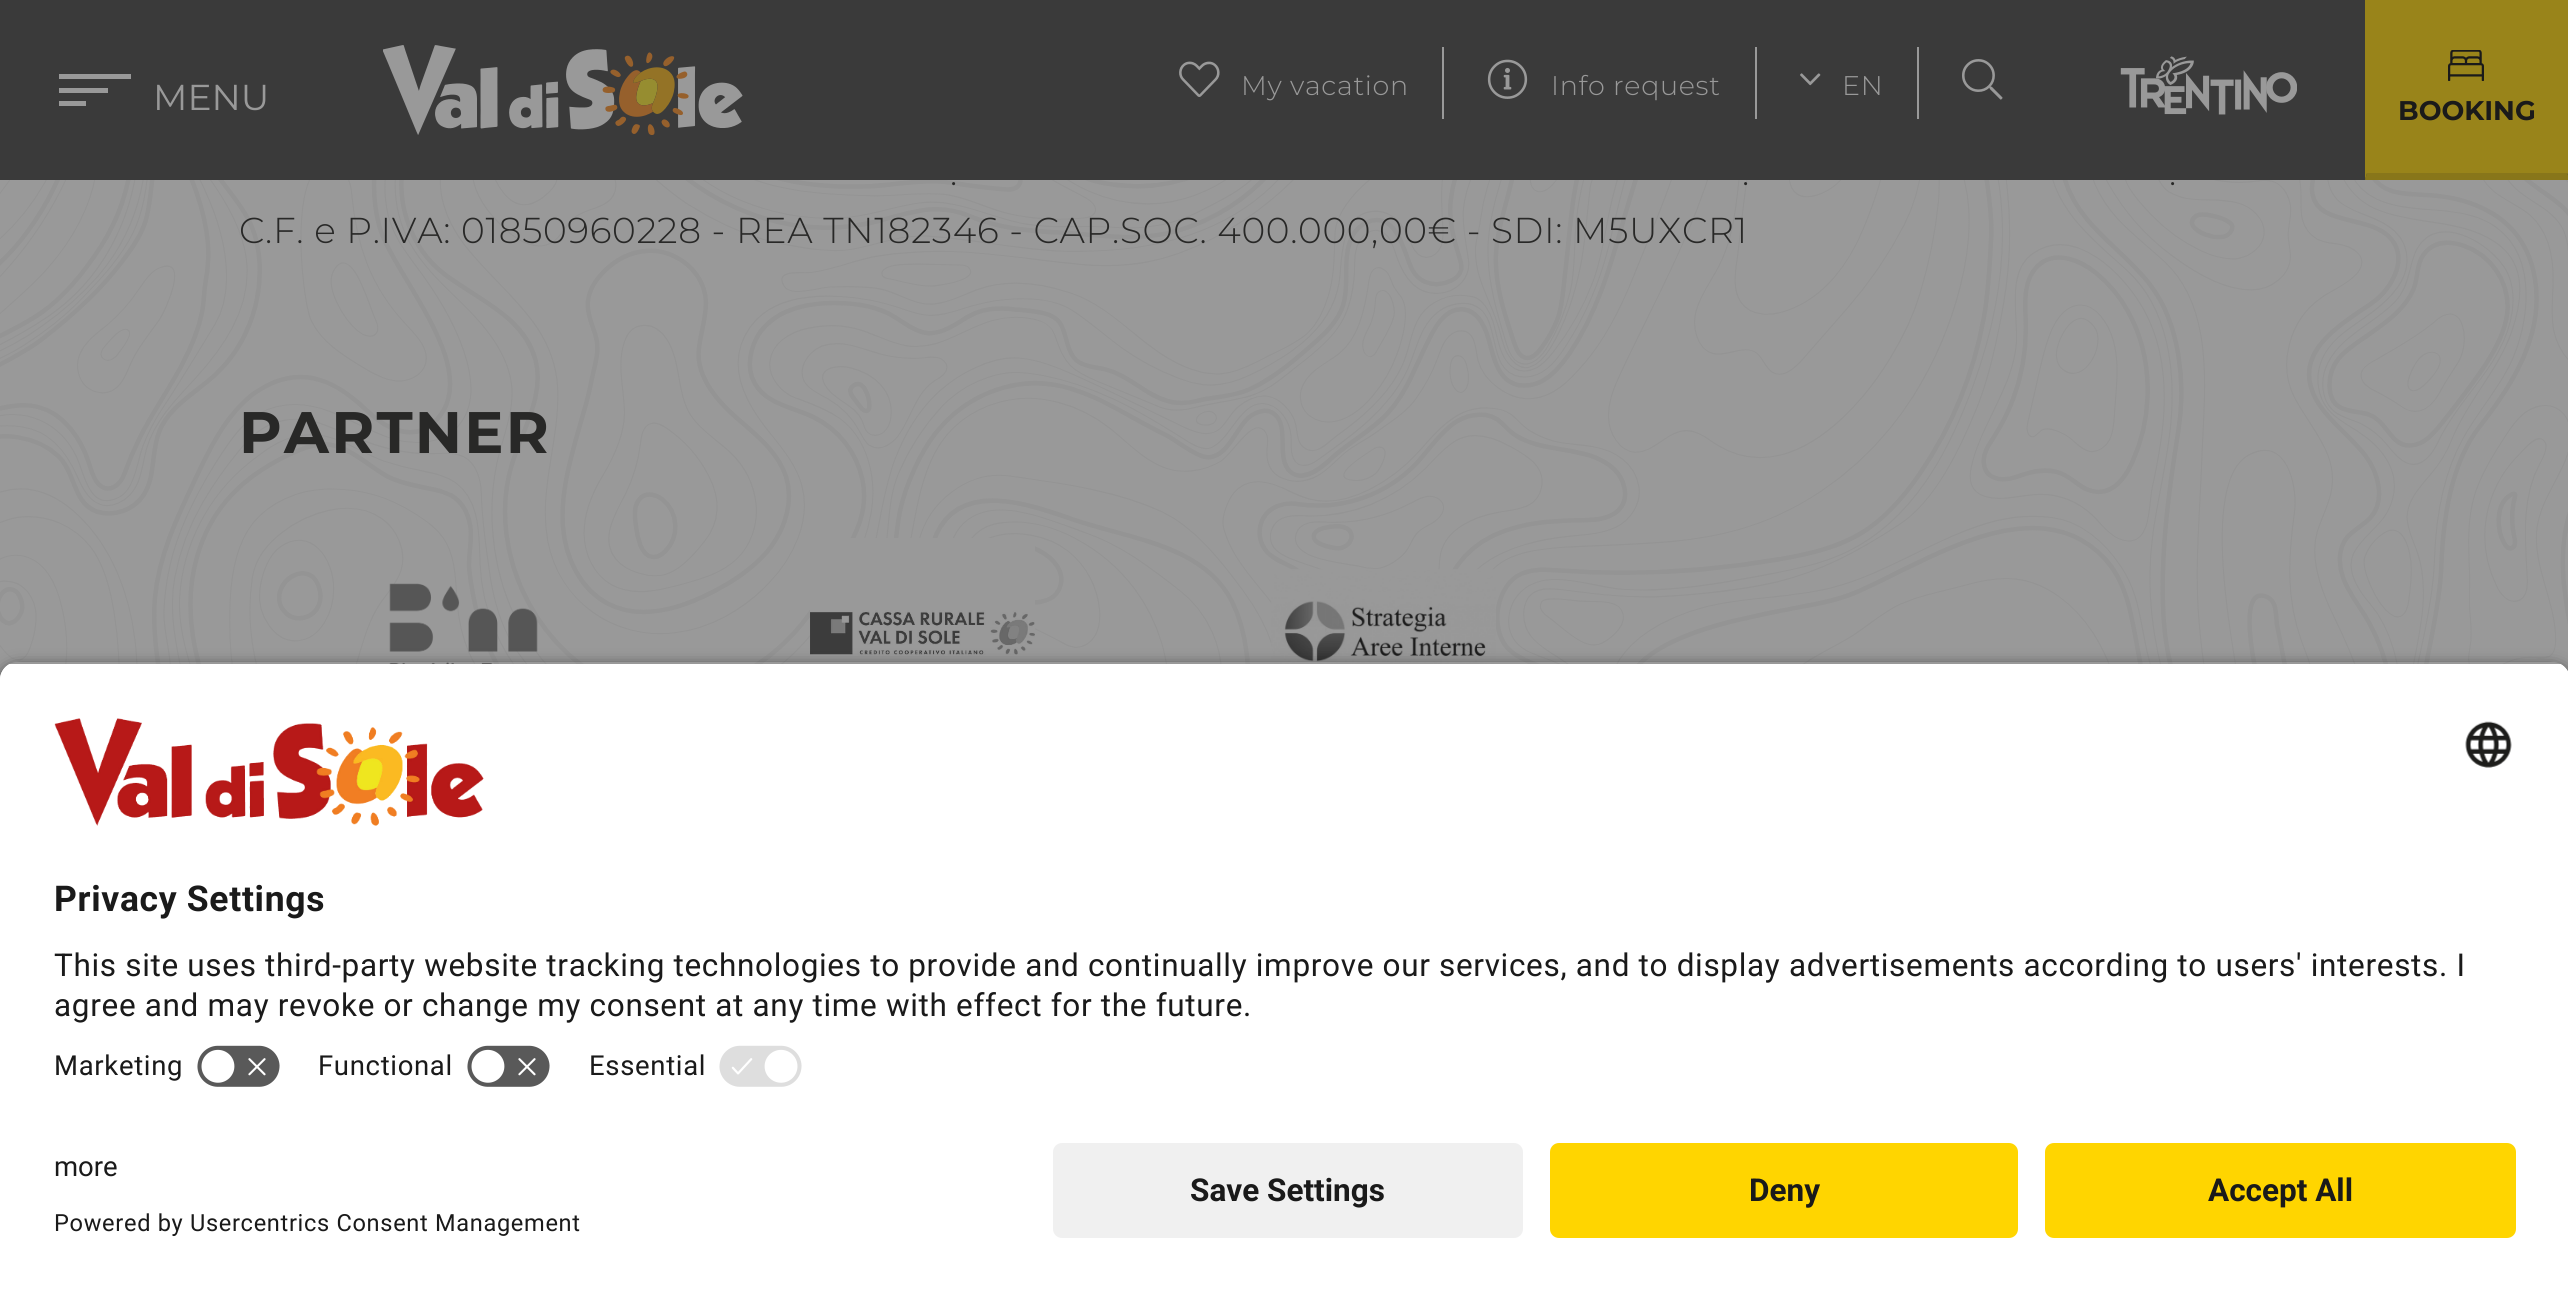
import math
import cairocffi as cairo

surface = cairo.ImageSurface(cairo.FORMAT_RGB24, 2568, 1291)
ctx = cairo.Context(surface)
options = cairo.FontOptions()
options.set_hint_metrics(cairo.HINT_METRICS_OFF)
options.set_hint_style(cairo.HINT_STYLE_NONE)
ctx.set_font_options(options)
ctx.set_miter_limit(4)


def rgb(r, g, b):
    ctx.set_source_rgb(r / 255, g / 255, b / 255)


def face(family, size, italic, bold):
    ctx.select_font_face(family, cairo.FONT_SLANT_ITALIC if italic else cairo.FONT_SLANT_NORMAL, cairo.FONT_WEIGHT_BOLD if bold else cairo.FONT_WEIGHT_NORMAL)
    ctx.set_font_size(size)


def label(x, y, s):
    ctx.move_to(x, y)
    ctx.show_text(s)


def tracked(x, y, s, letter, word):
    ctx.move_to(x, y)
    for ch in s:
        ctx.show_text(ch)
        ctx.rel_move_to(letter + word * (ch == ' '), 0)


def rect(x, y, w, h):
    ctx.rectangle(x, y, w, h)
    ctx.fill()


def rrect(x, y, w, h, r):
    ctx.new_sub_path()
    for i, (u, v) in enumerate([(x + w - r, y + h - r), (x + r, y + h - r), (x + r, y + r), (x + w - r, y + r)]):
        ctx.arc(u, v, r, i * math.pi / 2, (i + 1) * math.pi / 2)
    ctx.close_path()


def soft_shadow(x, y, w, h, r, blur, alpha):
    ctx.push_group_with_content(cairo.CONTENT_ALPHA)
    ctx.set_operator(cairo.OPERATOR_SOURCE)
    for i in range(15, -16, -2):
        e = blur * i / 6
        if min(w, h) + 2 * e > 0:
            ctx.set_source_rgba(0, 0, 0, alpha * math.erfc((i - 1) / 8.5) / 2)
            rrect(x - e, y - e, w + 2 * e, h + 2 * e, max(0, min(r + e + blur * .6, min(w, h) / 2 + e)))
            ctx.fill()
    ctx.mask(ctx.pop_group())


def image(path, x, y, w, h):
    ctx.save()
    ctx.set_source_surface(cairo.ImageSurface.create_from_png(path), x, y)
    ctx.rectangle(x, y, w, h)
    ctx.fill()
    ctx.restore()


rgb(255, 255, 255)
ctx.paint()
rgb(58, 58, 58)
rect(0, 0, 2568, 180)
rgb(153, 153, 153)
rect(59, 88, 49, 5)
rect(59, 74, 72, 5)
rect(59, 101, 27, 5)
face('Montserrat', 36, 0, 0)
label(153, 110, 'MENU')
image('image0.png', 383, 45, 360, 90)
rect(1442, 47, 2, 72)
image('image1.png', 1179, 61, 41, 36)
face('Montserrat Light', 27, 0, 0)
tracked(1241, 95, 'My vacation', 0.67, 0)
rect(1755, 47, 2, 72)
image('image2.png', 1487, 59, 41, 40)
tracked(1551, 95, 'Info request', 0.67, 0)
rect(1917, 47, 2, 72)
image('image3.png', 1800, 73, 21, 13)
tracked(1842, 95, 'EN', 0.67, 0)
image('image4.png', 1962, 59, 41, 41)
image('image5.png', 2120, 56, 177, 59)
rgb(153, 132, 26)
rect(2367, 2, 200, 171)
rect(2365, 0, 203, 2)
ctx.new_path()
ctx.move_to(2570, 0)
ctx.line_to(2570, 180)
ctx.line_to(2567, 173)
ctx.line_to(2567, 2)
ctx.close_path()
ctx.fill()
rgb(136, 118, 26)
ctx.new_path()
ctx.move_to(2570, 180)
ctx.line_to(2365, 180)
ctx.line_to(2367, 173)
ctx.line_to(2567, 173)
ctx.close_path()
ctx.fill()
rgb(153, 132, 26)
ctx.new_path()
ctx.move_to(2365, 180)
ctx.line_to(2365, 0)
ctx.line_to(2367, 2)
ctx.line_to(2367, 173)
ctx.close_path()
ctx.fill()
image('image6.png', 2448, 50, 36, 31)
face('Montserrat', 27, 0, 1)
rgb(26, 26, 26)
label(2398, 120, 'BOOKING')
image('image7.png', 0, 180, 2568, 500)
face('Montserrat Light', 36, 0, 0)
rgb(40, 40, 39)
tracked(950, 185, '.', 0.67, 0)
tracked(1742, 185, '.', 0.67, 0)
tracked(2169, 185, '.', 0.67, 0)
tracked(239, 243, 'C.F. e P.IVA: 01850960228 - REA TN182346 - CAP.SOC. 400.000,00€ - SDI: M5UXCR1', 0.67, 0)
face('Montserrat', 58.5, 0, 1)
tracked(239, 453, 'PARTNER', 2.25, 0)
image('image8.png', 389, 583, 149, 81)
image('image9.png', 810, 538, 225, 126)
image('image10.png', 1271, 569, 225, 95)
ctx.save()
ctx.set_fill_rule(cairo.FILL_RULE_EVEN_ODD)
ctx.new_path()
ctx.move_to(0, 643)
ctx.line_to(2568, 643)
ctx.line_to(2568, 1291)
ctx.line_to(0, 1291)
ctx.close_path()
ctx.move_to(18, 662)
ctx.line_to(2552, 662)
ctx.curve_to(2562, 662, 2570, 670, 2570, 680)
ctx.line_to(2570, 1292)
ctx.line_to(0, 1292)
ctx.line_to(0, 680)
ctx.curve_to(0, 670, 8, 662, 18, 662)
ctx.close_path()
ctx.clip()
rgb(0, 0, 0)
soft_shadow(0, 668, 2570, 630, 18, 8, 0.8)
ctx.restore()
ctx.save()
ctx.new_path()
ctx.move_to(18, 662)
ctx.line_to(2552, 662)
ctx.curve_to(2562, 662, 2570, 670, 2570, 680)
ctx.line_to(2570, 1125)
ctx.line_to(0, 1125)
ctx.line_to(0, 680)
ctx.curve_to(0, 670, 8, 662, 18, 662)
ctx.close_path()
ctx.clip()
rgb(255, 255, 255)
rect(0, 664, 2568, 461)
rect(0, 664, 2568, 371)
ctx.restore()
image('image11.png', 54, 718, 430, 108)
image('image12.png', 2465, 721, 47, 47)
face('Roboto', 35.5, 0, 1)
rgb(26, 26, 26)
tracked(54, 911, 'Privacy Settings', 0.67, 0)
face('Roboto', 31.5, 0, 0)
tracked(54, 976, 'This site uses third-party website tracking technologies to provide and continually improve our services, and to display advertisements according to users\' interests. I', 0.67, 0)
tracked(54, 1016, 'agree and may revoke or change my consent at any time with effect for the future.', 0.67, 0)
face('Roboto', 27.5, 0, 0)
tracked(54, 1075, 'Marketing', 0.67, 0)
image('image13.png', 197, 1045, 83, 42)
tracked(318, 1075, 'Functional', 0.67, 0)
image('image13.png', 467, 1045, 83, 42)
tracked(589, 1075, 'Essential', 0.67, 0)
image('image14.png', 719, 1045, 83, 42)
label(54, 1176, 'more')
face('Roboto', 23.6, 0, 0)
tracked(54, 1231, 'Powered by Usercentrics Consent Management', 0.67, 0)
rgb(240, 240, 240)
rrect(1053, 1143, 470, 95, 9)
ctx.fill()
face('Roboto', 31.5, 0, 1)
rgb(26, 26, 26)
label(1190, 1201, 'Save Settings')
rgb(255, 213, 0)
rrect(1550, 1143, 468, 95, 9)
ctx.fill()
rgb(26, 26, 26)
label(1749, 1201, 'Deny')
rgb(255, 213, 0)
rrect(2045, 1143, 471, 95, 9)
ctx.fill()
rgb(26, 26, 26)
label(2208, 1201, 'Accept All')
surface.write_to_png('render.png')
